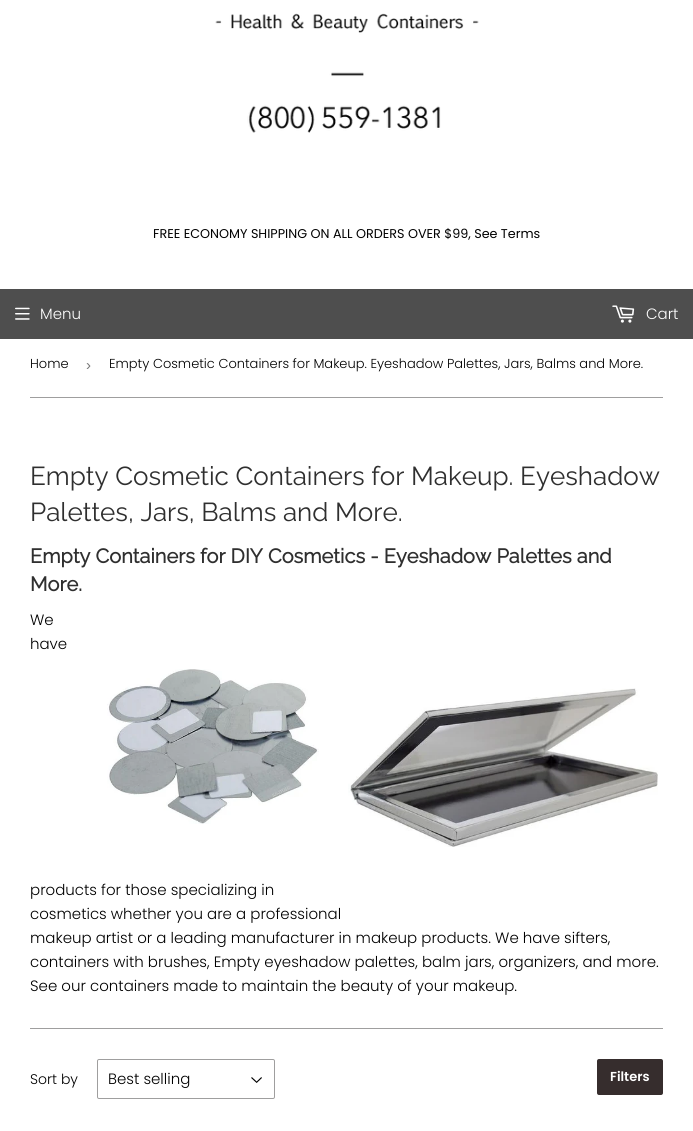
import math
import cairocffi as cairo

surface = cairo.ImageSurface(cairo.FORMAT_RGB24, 693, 1131)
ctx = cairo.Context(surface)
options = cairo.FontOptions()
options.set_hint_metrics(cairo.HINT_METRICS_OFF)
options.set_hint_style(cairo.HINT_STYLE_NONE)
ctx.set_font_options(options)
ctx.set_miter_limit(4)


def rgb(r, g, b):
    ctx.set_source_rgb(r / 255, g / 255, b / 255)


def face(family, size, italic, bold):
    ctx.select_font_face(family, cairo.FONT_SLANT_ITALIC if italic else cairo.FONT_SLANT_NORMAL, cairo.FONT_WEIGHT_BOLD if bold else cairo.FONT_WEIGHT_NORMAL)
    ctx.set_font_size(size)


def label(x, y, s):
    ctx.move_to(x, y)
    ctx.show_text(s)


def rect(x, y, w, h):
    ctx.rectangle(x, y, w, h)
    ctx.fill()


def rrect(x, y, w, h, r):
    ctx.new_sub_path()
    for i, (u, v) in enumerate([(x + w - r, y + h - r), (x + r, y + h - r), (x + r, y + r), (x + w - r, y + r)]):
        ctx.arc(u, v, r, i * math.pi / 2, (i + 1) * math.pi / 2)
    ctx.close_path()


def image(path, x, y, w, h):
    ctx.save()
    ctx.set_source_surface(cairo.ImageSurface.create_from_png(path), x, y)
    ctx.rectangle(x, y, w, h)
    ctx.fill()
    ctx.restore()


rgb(255, 255, 255)
ctx.paint()
image('image0.png', 215, 13, 264, 120)
face('Poppins', 12.75, 0, 0)
rgb(0, 0, 0)
label(153, 238, 'FREE ECONOMY SHIPPING ON ALL ORDERS OVER $99, See Terms')
rgb(78, 78, 78)
rect(0, 289, 693, 50)
image('image1.png', 15, 307, 15, 13)
face('Poppins Light', 15, 0, 0)
rgb(255, 255, 255)
label(40, 319, 'Menu')
image('image2.png', 612, 305, 23, 18)
label(646, 319, 'Cart')
rgb(159, 158, 158)
rect(30, 397, 633, 1)
face('Poppins Light', 13, 0, 0)
rgb(0, 0, 0)
label(30, 368, 'Home')
face('Liberation Sans', 15, 0, 0)
rgb(118, 118, 118)
label(86, 370, '›')
face('Poppins Light', 13, 0, 0)
rgb(0, 0, 0)
label(109, 368, 'Empty Cosmetic Containers for Makeup. Eyeshadow Palettes, Jars, Balms and More.')
face('Raleway', 26, 0, 0)
rgb(47, 47, 47)
label(30, 485, 'Empty Cosmetic Containers for Makeup. Eyeshadow')
label(30, 521, 'Palettes, Jars, Balms and More.')
face('Raleway', 20, 0, 1)
label(30, 563, 'Empty Containers for DIY Cosmetics - Eyeshadow Palettes and')
label(30, 591, 'More.')
face('Poppins Light', 15, 0, 0)
rgb(0, 0, 0)
label(30, 625, 'We')
label(30, 649, 'have')
image('image3.png', 107, 669, 212, 155)
image('image4.png', 348, 688, 310, 159)
label(30, 895, 'products for those specializing in')
label(30, 919, 'cosmetics whether you are a professional')
label(30, 943, 'makeup artist or a leading manufacturer in makeup products. We have sifters,')
label(30, 967, 'containers with brushes, Empty eyeshadow palettes, balm jars, organizers, and more.')
label(30, 991, 'See our containers made to maintain the beauty of your makeup.')
rgb(159, 158, 158)
rect(30, 1028, 633, 1)
face('Poppins Light', 14, 0, 0)
rgb(0, 0, 0)
label(30, 1084, 'Sort by')
image('image5.png', 251, 1077, 11, 6)
rrect(97.5, 1059.5, 177, 39, 1.5)
rgb(159, 158, 158)
ctx.set_line_width(1)
ctx.stroke()
face('Poppins Light', 15, 0, 0)
rgb(0, 0, 0)
label(108, 1084, 'Best selling')
rgb(54, 45, 45)
rrect(597, 1059, 66, 36, 2)
ctx.fill()
face('Poppins SemiBold', 13, 0, 0)
rgb(255, 255, 255)
label(610, 1081, 'Filters')
surface.write_to_png('render.png')
